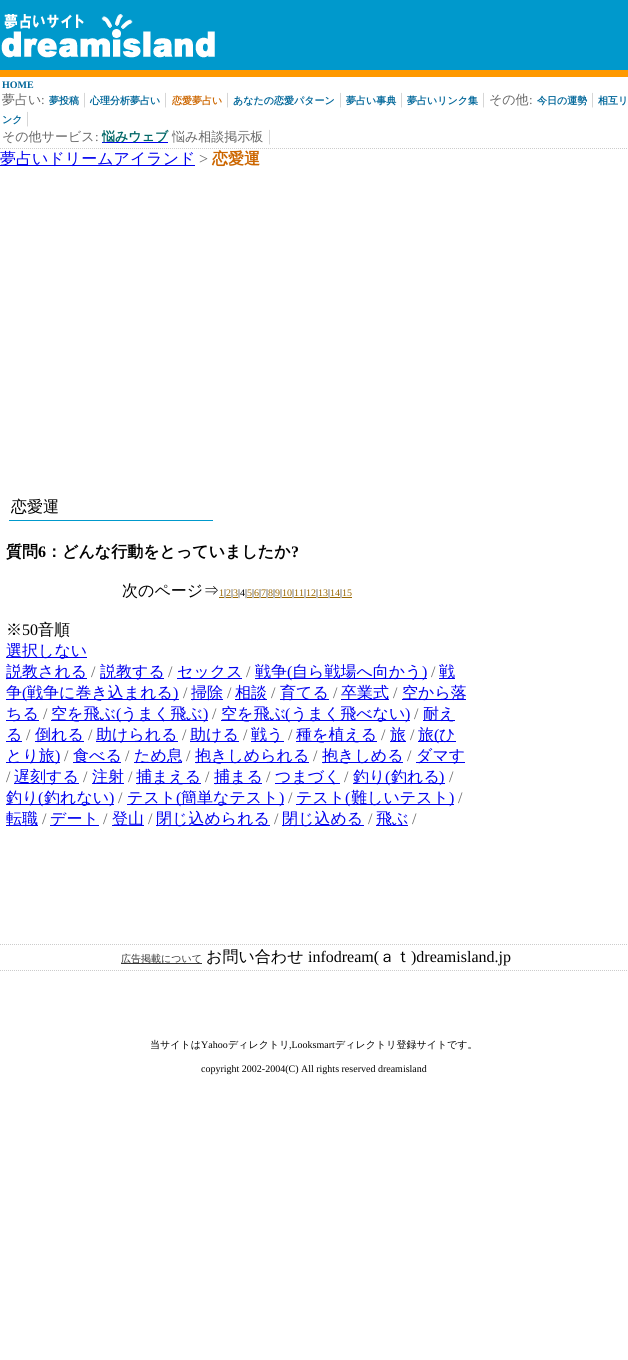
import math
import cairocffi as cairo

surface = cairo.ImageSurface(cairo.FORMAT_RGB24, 628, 1360)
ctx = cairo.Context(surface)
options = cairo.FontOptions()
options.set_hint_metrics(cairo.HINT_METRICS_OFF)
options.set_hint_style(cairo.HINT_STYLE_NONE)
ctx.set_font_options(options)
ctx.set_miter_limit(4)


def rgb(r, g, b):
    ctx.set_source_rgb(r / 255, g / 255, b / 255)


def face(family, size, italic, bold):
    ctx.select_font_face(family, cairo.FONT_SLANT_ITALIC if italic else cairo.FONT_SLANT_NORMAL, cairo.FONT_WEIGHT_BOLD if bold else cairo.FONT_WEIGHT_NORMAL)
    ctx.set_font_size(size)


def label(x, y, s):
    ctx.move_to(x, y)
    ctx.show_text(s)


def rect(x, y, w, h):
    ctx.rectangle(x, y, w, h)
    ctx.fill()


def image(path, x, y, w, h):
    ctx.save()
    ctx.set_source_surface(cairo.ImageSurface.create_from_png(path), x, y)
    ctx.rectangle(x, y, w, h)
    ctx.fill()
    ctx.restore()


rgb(255, 255, 255)
ctx.paint()
rgb(0, 153, 204)
rect(0, 0, 628, 70)
image('image0.png', 1, 14, 214, 44)
rgb(255, 153, 0)
rect(0, 70, 628, 7)
ctx.new_path()
ctx.move_to(0, 148.5)
ctx.line_to(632, 148.5)
rgb(204, 204, 204)
ctx.set_line_width(1)
ctx.set_dash([1, 1])
ctx.stroke()
face('Liberation Serif', 10, 0, 1)
rgb(0, 102, 153)
label(2, 88, 'HOME')
face('WenQuanYi Zen Hei Medium', 13, 0, 0)
rgb(102, 102, 102)
label(2, 104, '夢占い')
face('Liberation Serif', 13, 0, 0)
label(41, 104, ':')
face('WenQuanYi Zen Hei', 10, 0, 1)
rgb(0, 102, 153)
label(49, 104, '夢投稿')
face('Liberation Serif', 16, 0, 0)
rgb(204, 204, 204)
label(83, 104, '|')
face('WenQuanYi Zen Hei', 10, 0, 1)
rgb(0, 102, 153)
label(90, 104, '心理分析夢占い')
face('Liberation Serif', 16, 0, 0)
rgb(204, 204, 204)
label(164, 104, '|')
face('WenQuanYi Zen Hei', 10, 0, 1)
rgb(204, 102, 0)
label(172, 104, '恋愛夢占い')
face('Liberation Serif', 16, 0, 0)
rgb(204, 204, 204)
label(226, 104, '|')
face('WenQuanYi Zen Hei', 10, 0, 1)
rgb(0, 102, 153)
label(233, 104, 'あなたの恋愛パターン')
face('Liberation Serif', 16, 0, 0)
rgb(204, 204, 204)
label(339, 104, '|')
face('WenQuanYi Zen Hei', 10, 0, 1)
rgb(0, 102, 153)
label(346, 104, '夢占い事典')
face('Liberation Serif', 16, 0, 0)
rgb(204, 204, 204)
label(400, 104, '|')
face('WenQuanYi Zen Hei', 10, 0, 1)
rgb(0, 102, 153)
label(407, 104, '夢占いリンク集')
face('Liberation Serif', 16, 0, 0)
rgb(204, 204, 204)
label(482, 104, '|')
face('WenQuanYi Zen Hei Medium', 13, 0, 0)
rgb(102, 102, 102)
label(489, 104, 'その他')
face('Liberation Serif', 13, 0, 0)
label(529, 104, ':')
face('WenQuanYi Zen Hei', 10, 0, 1)
rgb(0, 102, 153)
label(537, 104, '今日の運勢')
face('Liberation Serif', 16, 0, 0)
rgb(204, 204, 204)
label(591, 104, '|')
face('WenQuanYi Zen Hei', 10, 0, 1)
rgb(0, 102, 153)
label(598, 104, '相互リ')
label(2, 123, 'ンク')
face('Liberation Serif', 16, 0, 0)
rgb(204, 204, 204)
label(26, 123, '|')
face('WenQuanYi Zen Hei Medium', 13, 0, 0)
rgb(102, 102, 102)
label(2, 141, 'その他サービス')
face('Liberation Serif', 13, 0, 0)
label(95, 141, ':')
rgb(0, 0, 238)
rect(102, 142, 66, 1)
face('WenQuanYi Zen Hei', 13, 0, 1)
rgb(0, 102, 102)
label(102, 141, '悩みウェブ')
face('WenQuanYi Zen Hei Medium', 13, 0, 0)
rgb(102, 102, 102)
label(172, 141, '悩み相談掲示板')
face('Liberation Serif', 16, 0, 0)
rgb(204, 204, 204)
label(268, 141, '|')
rgb(0, 0, 238)
rect(0, 165, 195, 1)
face('WenQuanYi Zen Hei Medium', 16, 0, 0)
label(0, 164, '夢占いドリームアイランド')
face('Liberation Serif', 16, 0, 0)
rgb(102, 102, 102)
label(199, 164, '>')
face('WenQuanYi Zen Hei', 16, 0, 1)
rgb(204, 102, 0)
label(212, 164, '恋愛運')
rgb(0, 153, 204)
rect(9, 520, 204, 1)
face('WenQuanYi Zen Hei Medium', 16, 0, 0)
rgb(0, 0, 0)
label(11, 512, '恋愛運')
face('WenQuanYi Zen Hei', 16, 0, 1)
label(6, 557, '質問')
face('Liberation Serif', 16, 0, 1)
label(38, 557, '6')
face('WenQuanYi Zen Hei', 16, 0, 1)
label(46, 557, '：どんな行動をとっていましたか')
face('Liberation Serif', 16, 0, 1)
label(291, 557, '?')
face('WenQuanYi Zen Hei Medium', 16, 0, 0)
label(122, 596, '次のページ⇒')
face('Liberation Serif', 10, 0, 0)
rgb(153, 102, 0)
label(219, 596, '1')
rect(219, 597, 5, 1)
rgb(0, 0, 0)
label(224, 596, '|')
rgb(153, 102, 0)
label(226, 596, '2')
rect(226, 597, 5, 1)
rgb(0, 0, 0)
label(231, 596, '|')
rgb(153, 102, 0)
label(233, 596, '3')
rect(233, 597, 5, 1)
rgb(0, 0, 0)
label(238, 596, '|4|')
rgb(153, 102, 0)
label(247, 596, '5')
rect(247, 597, 5, 1)
rgb(0, 0, 0)
label(252, 596, '|')
rgb(153, 102, 0)
label(254, 596, '6')
rect(254, 597, 5, 1)
rgb(0, 0, 0)
label(259, 596, '|')
rgb(153, 102, 0)
label(261, 596, '7')
rect(261, 597, 5, 1)
rgb(0, 0, 0)
label(266, 596, '|')
rgb(153, 102, 0)
label(268, 596, '8')
rect(268, 597, 5, 1)
rgb(0, 0, 0)
label(273, 596, '|')
rgb(153, 102, 0)
label(275, 596, '9')
rect(275, 597, 5, 1)
rgb(0, 0, 0)
label(280, 596, '|')
rgb(153, 102, 0)
label(282, 596, '10')
rect(282, 597, 10, 1)
rgb(0, 0, 0)
label(292, 596, '|')
rgb(153, 102, 0)
label(294, 596, '11')
rect(294, 597, 10, 1)
rgb(0, 0, 0)
label(304, 596, '|')
rgb(153, 102, 0)
label(306, 596, '12')
rect(306, 597, 10, 1)
rgb(0, 0, 0)
label(316, 596, '|')
rgb(153, 102, 0)
label(318, 596, '13')
rect(318, 597, 10, 1)
rgb(0, 0, 0)
label(328, 596, '|')
rgb(153, 102, 0)
label(330, 596, '14')
rect(330, 597, 10, 1)
rgb(0, 0, 0)
label(340, 596, '|')
rgb(153, 102, 0)
label(342, 596, '15')
rect(342, 597, 10, 1)
face('WenQuanYi Zen Hei Medium', 16, 0, 0)
rgb(0, 0, 0)
label(6, 635, '※')
face('Liberation Serif', 16, 0, 0)
label(22, 635, '50')
face('WenQuanYi Zen Hei Medium', 16, 0, 0)
label(38, 635, '音順')
rgb(0, 0, 238)
rect(6, 657, 81, 1)
label(6, 656, '選択しない')
rect(6, 678, 81, 1)
label(6, 677, '説教される')
face('Liberation Serif', 16, 0, 0)
rgb(102, 102, 102)
label(91, 677, '/')
rgb(0, 0, 238)
rect(100, 678, 64, 1)
face('WenQuanYi Zen Hei Medium', 16, 0, 0)
label(100, 677, '説教する')
face('Liberation Serif', 16, 0, 0)
rgb(102, 102, 102)
label(168, 677, '/')
rgb(0, 0, 238)
rect(177, 678, 65, 1)
face('WenQuanYi Zen Hei Medium', 16, 0, 0)
label(177, 677, 'セックス')
face('Liberation Serif', 16, 0, 0)
rgb(102, 102, 102)
label(246, 677, '/')
rgb(0, 0, 238)
rect(255, 678, 172, 1)
face('WenQuanYi Zen Hei Medium', 16, 0, 0)
label(255, 677, '戦争')
face('Liberation Serif', 16, 0, 0)
label(287, 677, '(')
face('WenQuanYi Zen Hei Medium', 16, 0, 0)
label(292, 677, '自ら戦場へ向かう')
face('Liberation Serif', 16, 0, 0)
label(422, 677, ')')
rgb(102, 102, 102)
label(431, 677, '/')
rgb(0, 0, 238)
rect(439, 678, 16, 1)
face('WenQuanYi Zen Hei Medium', 16, 0, 0)
label(439, 677, '戦')
rect(6, 699, 173, 1)
label(6, 698, '争')
face('Liberation Serif', 16, 0, 0)
label(22, 698, '(')
face('WenQuanYi Zen Hei Medium', 16, 0, 0)
label(27, 698, '戦争に巻き込まれる')
face('Liberation Serif', 16, 0, 0)
label(173, 698, ')')
rgb(102, 102, 102)
label(183, 698, '/')
rgb(0, 0, 238)
rect(191, 699, 32, 1)
face('WenQuanYi Zen Hei Medium', 16, 0, 0)
label(191, 698, '掃除')
face('Liberation Serif', 16, 0, 0)
rgb(102, 102, 102)
label(227, 698, '/')
rgb(0, 0, 238)
rect(235, 699, 32, 1)
face('WenQuanYi Zen Hei Medium', 16, 0, 0)
label(235, 698, '相談')
face('Liberation Serif', 16, 0, 0)
rgb(102, 102, 102)
label(271, 698, '/')
rgb(0, 0, 238)
rect(280, 699, 49, 1)
face('WenQuanYi Zen Hei Medium', 16, 0, 0)
label(280, 698, '育てる')
face('Liberation Serif', 16, 0, 0)
rgb(102, 102, 102)
label(333, 698, '/')
rgb(0, 0, 238)
rect(341, 699, 48, 1)
face('WenQuanYi Zen Hei Medium', 16, 0, 0)
label(341, 698, '卒業式')
face('Liberation Serif', 16, 0, 0)
rgb(102, 102, 102)
label(393, 698, '/')
rgb(0, 0, 238)
rect(402, 699, 64, 1)
face('WenQuanYi Zen Hei Medium', 16, 0, 0)
label(402, 698, '空から落')
rect(6, 720, 33, 1)
label(6, 719, 'ちる')
face('Liberation Serif', 16, 0, 0)
rgb(102, 102, 102)
label(43, 719, '/')
rgb(0, 0, 238)
rect(51, 720, 157, 1)
face('WenQuanYi Zen Hei Medium', 16, 0, 0)
label(51, 719, '空を飛ぶ')
face('Liberation Serif', 16, 0, 0)
label(116, 719, '(')
face('WenQuanYi Zen Hei Medium', 16, 0, 0)
label(121, 719, 'うまく飛ぶ')
face('Liberation Serif', 16, 0, 0)
label(203, 719, ')')
rgb(102, 102, 102)
label(212, 719, '/')
rgb(0, 0, 238)
rect(221, 720, 189, 1)
face('WenQuanYi Zen Hei Medium', 16, 0, 0)
label(221, 719, '空を飛ぶ')
face('Liberation Serif', 16, 0, 0)
label(285, 719, '(')
face('WenQuanYi Zen Hei Medium', 16, 0, 0)
label(291, 719, 'うまく飛べない')
face('Liberation Serif', 16, 0, 0)
label(405, 719, ')')
rgb(102, 102, 102)
label(414, 719, '/')
rgb(0, 0, 238)
rect(423, 720, 32, 1)
face('WenQuanYi Zen Hei Medium', 16, 0, 0)
label(423, 719, '耐え')
rect(6, 741, 16, 1)
label(6, 740, 'る')
face('Liberation Serif', 16, 0, 0)
rgb(102, 102, 102)
label(26, 740, '/')
rgb(0, 0, 238)
rect(35, 741, 49, 1)
face('WenQuanYi Zen Hei Medium', 16, 0, 0)
label(35, 740, '倒れる')
face('Liberation Serif', 16, 0, 0)
rgb(102, 102, 102)
label(88, 740, '/')
rgb(0, 0, 238)
rect(96, 741, 82, 1)
face('WenQuanYi Zen Hei Medium', 16, 0, 0)
label(96, 740, '助けられる')
face('Liberation Serif', 16, 0, 0)
rgb(102, 102, 102)
label(182, 740, '/')
rgb(0, 0, 238)
rect(190, 741, 49, 1)
face('WenQuanYi Zen Hei Medium', 16, 0, 0)
label(190, 740, '助ける')
face('Liberation Serif', 16, 0, 0)
rgb(102, 102, 102)
label(243, 740, '/')
rgb(0, 0, 238)
rect(251, 741, 33, 1)
face('WenQuanYi Zen Hei Medium', 16, 0, 0)
label(251, 740, '戦う')
face('Liberation Serif', 16, 0, 0)
rgb(102, 102, 102)
label(288, 740, '/')
rgb(0, 0, 238)
rect(296, 741, 81, 1)
face('WenQuanYi Zen Hei Medium', 16, 0, 0)
label(296, 740, '種を植える')
face('Liberation Serif', 16, 0, 0)
rgb(102, 102, 102)
label(381, 740, '/')
rgb(0, 0, 238)
rect(390, 741, 16, 1)
face('WenQuanYi Zen Hei Medium', 16, 0, 0)
label(390, 740, '旅')
face('Liberation Serif', 16, 0, 0)
rgb(102, 102, 102)
label(410, 740, '/')
rgb(0, 0, 238)
rect(418, 741, 38, 1)
face('WenQuanYi Zen Hei Medium', 16, 0, 0)
label(418, 740, '旅')
face('Liberation Serif', 16, 0, 0)
label(434, 740, '(')
face('WenQuanYi Zen Hei Medium', 16, 0, 0)
label(439, 740, 'ひ')
rect(6, 762, 54, 1)
label(6, 761, 'とり旅')
face('Liberation Serif', 16, 0, 0)
label(55, 761, ')')
rgb(102, 102, 102)
label(64, 761, '/')
rgb(0, 0, 238)
rect(73, 762, 48, 1)
face('WenQuanYi Zen Hei Medium', 16, 0, 0)
label(73, 761, '食べる')
face('Liberation Serif', 16, 0, 0)
rgb(102, 102, 102)
label(125, 761, '/')
rgb(0, 0, 238)
rect(134, 762, 48, 1)
face('WenQuanYi Zen Hei Medium', 16, 0, 0)
label(134, 761, 'ため息')
face('Liberation Serif', 16, 0, 0)
rgb(102, 102, 102)
label(186, 761, '/')
rgb(0, 0, 238)
rect(195, 762, 114, 1)
face('WenQuanYi Zen Hei Medium', 16, 0, 0)
label(195, 761, '抱きしめられる')
face('Liberation Serif', 16, 0, 0)
rgb(102, 102, 102)
label(313, 761, '/')
rgb(0, 0, 238)
rect(322, 762, 81, 1)
face('WenQuanYi Zen Hei Medium', 16, 0, 0)
label(322, 761, '抱きしめる')
face('Liberation Serif', 16, 0, 0)
rgb(102, 102, 102)
label(407, 761, '/')
rgb(0, 0, 238)
rect(416, 762, 49, 1)
face('WenQuanYi Zen Hei Medium', 16, 0, 0)
label(416, 761, 'ダマす')
face('Liberation Serif', 16, 0, 0)
rgb(102, 102, 102)
label(6, 782, '/')
rgb(0, 0, 238)
rect(14, 783, 65, 1)
face('WenQuanYi Zen Hei Medium', 16, 0, 0)
label(14, 782, '遅刻する')
face('Liberation Serif', 16, 0, 0)
rgb(102, 102, 102)
label(83, 782, '/')
rgb(0, 0, 238)
rect(92, 783, 32, 1)
face('WenQuanYi Zen Hei Medium', 16, 0, 0)
label(92, 782, '注射')
face('Liberation Serif', 16, 0, 0)
rgb(102, 102, 102)
label(128, 782, '/')
rgb(0, 0, 238)
rect(136, 783, 65, 1)
face('WenQuanYi Zen Hei Medium', 16, 0, 0)
label(136, 782, '捕まえる')
face('Liberation Serif', 16, 0, 0)
rgb(102, 102, 102)
label(205, 782, '/')
rgb(0, 0, 238)
rect(214, 783, 48, 1)
face('WenQuanYi Zen Hei Medium', 16, 0, 0)
label(214, 782, '捕まる')
face('Liberation Serif', 16, 0, 0)
rgb(102, 102, 102)
label(266, 782, '/')
rgb(0, 0, 238)
rect(275, 783, 65, 1)
face('WenQuanYi Zen Hei Medium', 16, 0, 0)
label(275, 782, 'つまづく')
face('Liberation Serif', 16, 0, 0)
rgb(102, 102, 102)
label(344, 782, '/')
rgb(0, 0, 238)
rect(353, 783, 92, 1)
face('WenQuanYi Zen Hei Medium', 16, 0, 0)
label(353, 782, '釣り')
face('Liberation Serif', 16, 0, 0)
label(385, 782, '(')
face('WenQuanYi Zen Hei Medium', 16, 0, 0)
label(391, 782, '釣れる')
face('Liberation Serif', 16, 0, 0)
label(439, 782, ')')
rgb(102, 102, 102)
label(449, 782, '/')
rgb(0, 0, 238)
rect(6, 804, 108, 1)
face('WenQuanYi Zen Hei Medium', 16, 0, 0)
label(6, 803, '釣り')
face('Liberation Serif', 16, 0, 0)
label(38, 803, '(')
face('WenQuanYi Zen Hei Medium', 16, 0, 0)
label(44, 803, '釣れない')
face('Liberation Serif', 16, 0, 0)
label(109, 803, ')')
rgb(102, 102, 102)
label(118, 803, '/')
rgb(0, 0, 238)
rect(127, 804, 157, 1)
face('WenQuanYi Zen Hei Medium', 16, 0, 0)
label(127, 803, 'テスト')
face('Liberation Serif', 16, 0, 0)
label(176, 803, '(')
face('WenQuanYi Zen Hei Medium', 16, 0, 0)
label(181, 803, '簡単なテスト')
face('Liberation Serif', 16, 0, 0)
label(279, 803, ')')
rgb(102, 102, 102)
label(288, 803, '/')
rgb(0, 0, 238)
rect(296, 804, 158, 1)
face('WenQuanYi Zen Hei Medium', 16, 0, 0)
label(296, 803, 'テスト')
face('Liberation Serif', 16, 0, 0)
label(345, 803, '(')
face('WenQuanYi Zen Hei Medium', 16, 0, 0)
label(351, 803, '難しいテスト')
face('Liberation Serif', 16, 0, 0)
label(449, 803, ')')
rgb(102, 102, 102)
label(458, 803, '/')
rgb(0, 0, 238)
rect(6, 825, 32, 1)
face('WenQuanYi Zen Hei Medium', 16, 0, 0)
label(6, 824, '転職')
face('Liberation Serif', 16, 0, 0)
rgb(102, 102, 102)
label(42, 824, '/')
rgb(0, 0, 238)
rect(50, 825, 49, 1)
face('WenQuanYi Zen Hei Medium', 16, 0, 0)
label(50, 824, 'デート')
face('Liberation Serif', 16, 0, 0)
rgb(102, 102, 102)
label(103, 824, '/')
rgb(0, 0, 238)
rect(112, 825, 32, 1)
face('WenQuanYi Zen Hei Medium', 16, 0, 0)
label(112, 824, '登山')
face('Liberation Serif', 16, 0, 0)
rgb(102, 102, 102)
label(148, 824, '/')
rgb(0, 0, 238)
rect(156, 825, 114, 1)
face('WenQuanYi Zen Hei Medium', 16, 0, 0)
label(156, 824, '閉じ込められる')
face('Liberation Serif', 16, 0, 0)
rgb(102, 102, 102)
label(274, 824, '/')
rgb(0, 0, 238)
rect(282, 825, 82, 1)
face('WenQuanYi Zen Hei Medium', 16, 0, 0)
label(282, 824, '閉じ込める')
face('Liberation Serif', 16, 0, 0)
rgb(102, 102, 102)
label(368, 824, '/')
rgb(0, 0, 238)
rect(376, 825, 32, 1)
face('WenQuanYi Zen Hei Medium', 16, 0, 0)
label(376, 824, '飛ぶ')
face('Liberation Serif', 16, 0, 0)
rgb(102, 102, 102)
label(412, 824, '/')
ctx.new_path()
ctx.move_to(0, 944.5)
ctx.line_to(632, 944.5)
rgb(204, 204, 204)
ctx.stroke()
ctx.new_path()
ctx.move_to(0, 970.5)
ctx.line_to(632, 970.5)
ctx.stroke()
rgb(51, 51, 51)
rect(121, 963, 81, 1)
face('WenQuanYi Zen Hei Medium', 10, 0, 0)
label(121, 962, '広告掲載について')
face('WenQuanYi Zen Hei Medium', 16, 0, 0)
rgb(0, 0, 0)
label(206, 962, 'お問い合わせ')
face('Liberation Serif', 16, 0, 0)
label(308, 962, 'infodream(')
face('WenQuanYi Zen Hei Medium', 16, 0, 0)
label(379, 962, 'ａｔ')
face('Liberation Serif', 16, 0, 0)
label(411, 962, ')dreamisland.jp')
face('WenQuanYi Zen Hei Medium', 10, 0, 0)
label(150, 1048, '当サイトは')
face('Liberation Serif', 10, 0, 0)
label(201, 1048, 'Yahoo')
face('WenQuanYi Zen Hei Medium', 10, 0, 0)
label(228, 1048, 'ディレクトリ')
face('Liberation Serif', 10, 0, 0)
label(289, 1048, ',Looksmart')
face('WenQuanYi Zen Hei Medium', 10, 0, 0)
label(335, 1048, 'ディレクトリ登録サイトです。')
face('Liberation Serif', 10, 0, 0)
label(201, 1072, 'copyright 2002-2004(C) All rights reserved dreamisland')
surface.write_to_png('render.png')
